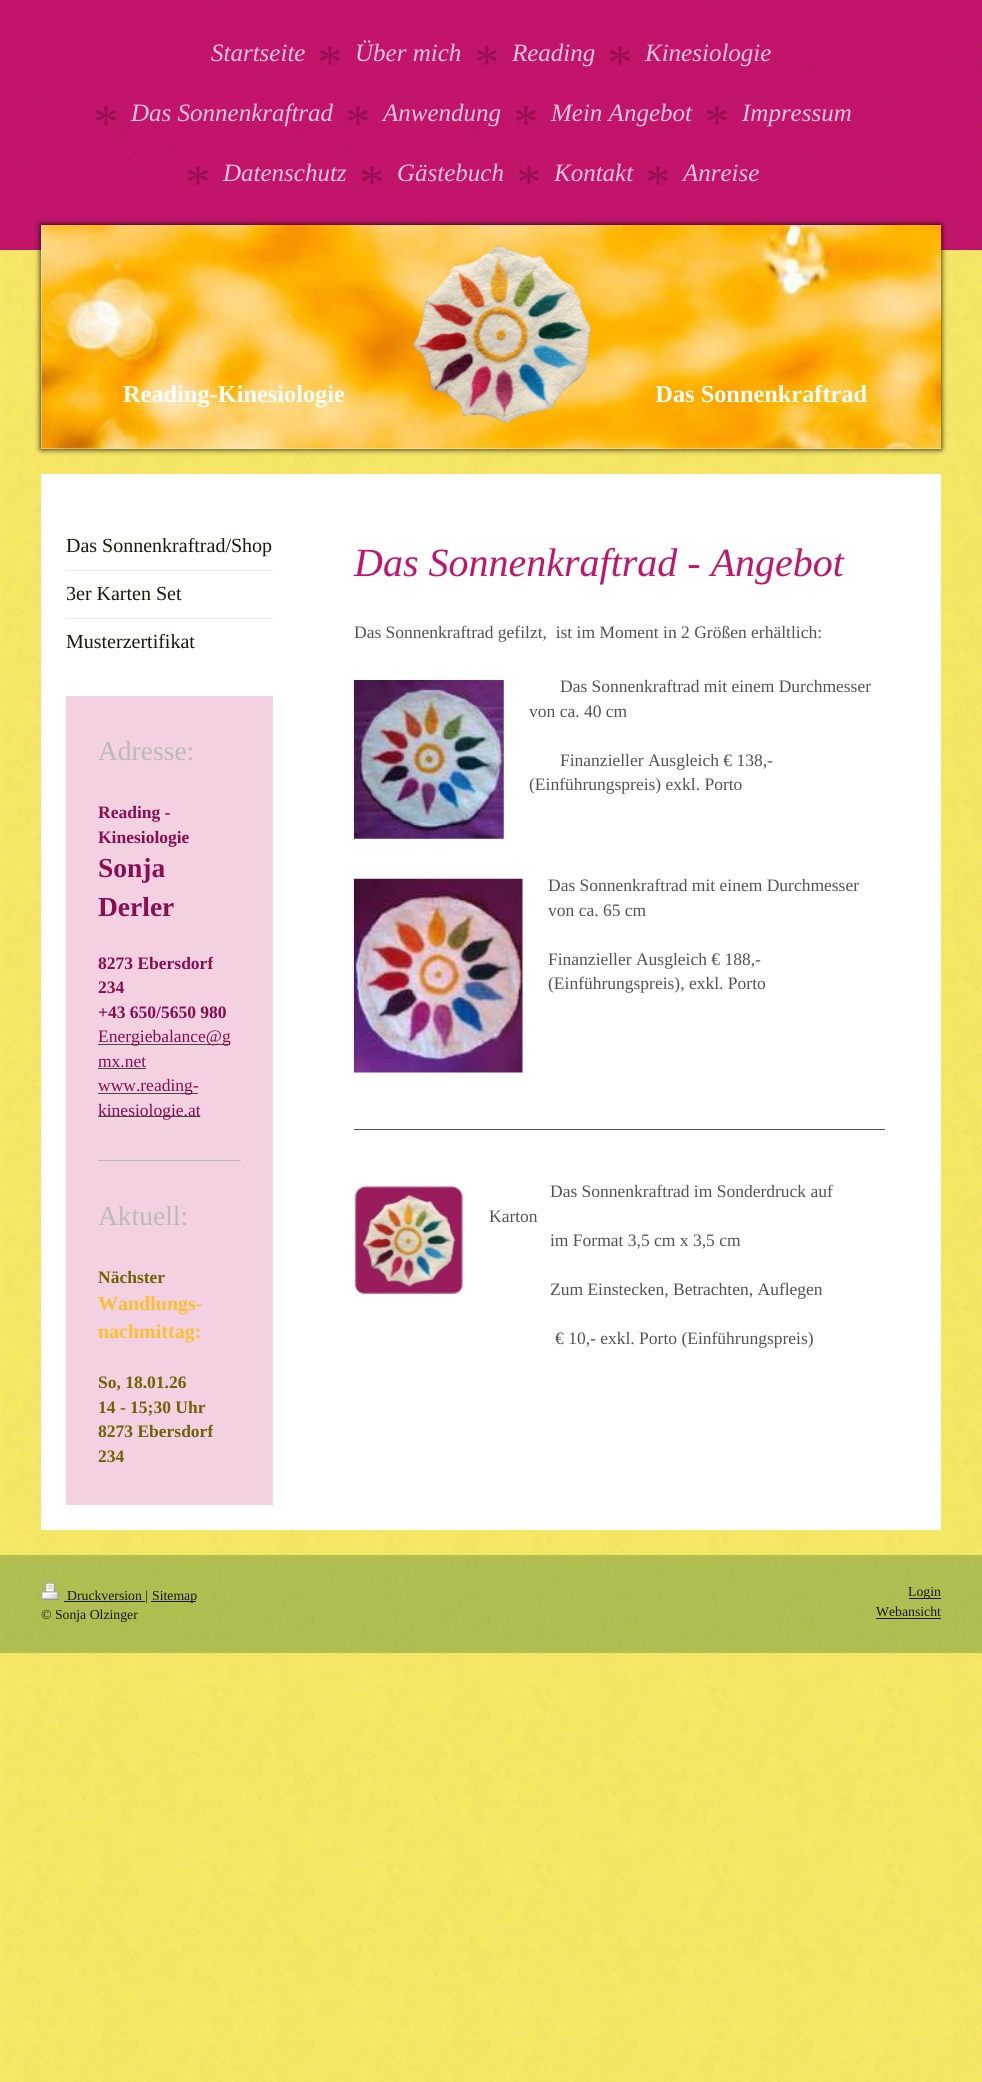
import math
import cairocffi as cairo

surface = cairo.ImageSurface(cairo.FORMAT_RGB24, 982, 2082)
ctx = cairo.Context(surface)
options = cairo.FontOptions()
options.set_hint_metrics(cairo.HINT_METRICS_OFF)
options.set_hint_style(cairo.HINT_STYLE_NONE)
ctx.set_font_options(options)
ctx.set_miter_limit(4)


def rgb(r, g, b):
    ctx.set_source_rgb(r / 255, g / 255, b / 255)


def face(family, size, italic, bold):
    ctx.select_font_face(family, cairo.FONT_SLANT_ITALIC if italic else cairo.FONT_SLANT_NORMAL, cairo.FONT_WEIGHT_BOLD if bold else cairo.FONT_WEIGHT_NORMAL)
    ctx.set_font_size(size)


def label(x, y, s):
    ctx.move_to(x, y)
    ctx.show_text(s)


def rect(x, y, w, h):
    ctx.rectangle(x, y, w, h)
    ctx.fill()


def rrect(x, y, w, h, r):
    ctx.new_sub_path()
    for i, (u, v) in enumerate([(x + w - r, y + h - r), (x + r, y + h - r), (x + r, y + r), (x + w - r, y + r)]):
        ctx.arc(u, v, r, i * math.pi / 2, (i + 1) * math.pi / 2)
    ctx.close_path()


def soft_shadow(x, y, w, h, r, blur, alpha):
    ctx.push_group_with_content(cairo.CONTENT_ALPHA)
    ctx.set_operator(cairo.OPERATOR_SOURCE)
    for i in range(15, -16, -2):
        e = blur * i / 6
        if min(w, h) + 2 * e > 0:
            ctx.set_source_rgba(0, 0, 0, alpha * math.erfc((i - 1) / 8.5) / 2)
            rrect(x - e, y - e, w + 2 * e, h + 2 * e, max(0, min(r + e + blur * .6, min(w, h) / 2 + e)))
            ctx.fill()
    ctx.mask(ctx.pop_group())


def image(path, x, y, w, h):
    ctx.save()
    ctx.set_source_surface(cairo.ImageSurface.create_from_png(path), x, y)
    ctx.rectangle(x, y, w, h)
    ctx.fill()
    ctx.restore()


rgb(246, 231, 101)
ctx.paint()
image('image0.png', 4, 250, 978, 1832)
rgb(195, 20, 107)
rect(0, 0, 982, 250)
image('image1.png', 5, 2, 977, 248)
face('Liberation Serif', 25, 1, 0)
rgb(246, 199, 222)
label(211, 61, 'Startseite')
face('Liberation Serif', 50, 1, 0)
rgb(149, 15, 82)
label(315, 79, '*')
face('Liberation Serif', 25, 1, 0)
rgb(246, 199, 222)
label(355, 61, 'Über mich')
face('Liberation Serif', 50, 1, 0)
rgb(149, 15, 82)
label(472, 79, '*')
face('Liberation Serif', 25, 1, 0)
rgb(246, 199, 222)
label(512, 61, 'Reading')
face('Liberation Serif', 50, 1, 0)
rgb(149, 15, 82)
label(605, 79, '*')
face('Liberation Serif', 25, 1, 0)
rgb(246, 199, 222)
label(645, 61, 'Kinesiologie')
face('Liberation Serif', 50, 1, 0)
rgb(149, 15, 82)
label(91, 139, '*')
face('Liberation Serif', 25, 1, 0)
rgb(246, 199, 222)
label(131, 121, 'Das Sonnenkraftrad')
face('Liberation Serif', 50, 1, 0)
rgb(149, 15, 82)
label(343, 139, '*')
face('Liberation Serif', 25, 1, 0)
rgb(246, 199, 222)
label(383, 121, 'Anwendung')
face('Liberation Serif', 50, 1, 0)
rgb(149, 15, 82)
label(511, 139, '*')
face('Liberation Serif', 25, 1, 0)
rgb(246, 199, 222)
label(551, 121, 'Mein Angebot')
face('Liberation Serif', 50, 1, 0)
rgb(149, 15, 82)
label(702, 139, '*')
face('Liberation Serif', 25, 1, 0)
rgb(246, 199, 222)
label(742, 121, 'Impressum')
face('Liberation Serif', 50, 1, 0)
rgb(149, 15, 82)
label(183, 199, '*')
face('Liberation Serif', 25, 1, 0)
rgb(246, 199, 222)
label(223, 181, 'Datenschutz')
face('Liberation Serif', 50, 1, 0)
rgb(149, 15, 82)
label(357, 199, '*')
face('Liberation Serif', 25, 1, 0)
rgb(246, 199, 222)
label(397, 181, 'Gästebuch')
face('Liberation Serif', 50, 1, 0)
rgb(149, 15, 82)
label(514, 199, '*')
face('Liberation Serif', 25, 1, 0)
rgb(246, 199, 222)
label(554, 181, 'Kontakt')
face('Liberation Serif', 50, 1, 0)
rgb(149, 15, 82)
label(643, 199, '*')
face('Liberation Serif', 25, 1, 0)
rgb(246, 199, 222)
label(683, 181, 'Anreise')
rgb(0, 0, 0)
soft_shadow(41, 225, 900, 224, 0, 3, 1)
rgb(238, 238, 238)
rect(41, 225, 900, 224)
image('image2.png', 41, 225, 901, 224)
image('image3.png', 413, 245, 179, 178)
face('Liberation Serif', 24.35, 0, 1)
rgb(255, 255, 255)
label(123, 402, 'Reading-Kinesiologie                                                   Das Sonnenkraftrad')
rect(41, 474, 900, 1056)
rgb(230, 230, 230)
rect(66, 570, 207, 1)
face('Liberation Serif', 20, 0, 0)
rgb(25, 23, 10)
label(66, 552, 'Das Sonnenkraftrad/Shop')
rgb(230, 230, 230)
rect(66, 618, 207, 1)
rgb(25, 23, 10)
label(66, 600, '3er Karten Set')
label(66, 648, 'Musterzertifikat')
rgb(243, 208, 226)
rect(66, 696, 207, 809)
face('Liberation Serif', 27.5, 0, 0)
rgb(186, 186, 186)
label(98, 760, 'Adresse:')
face('Liberation Serif', 17.5, 0, 1)
rgb(136, 14, 79)
label(98, 818, 'Reading -')
label(98, 843, 'Kinesiologie')
face('Liberation Serif', 27.5, 0, 1)
label(98, 877, 'Sonja')
label(98, 916, 'Derler')
face('Liberation Serif', 17.5, 0, 1)
label(98, 969, '8273 Ebersdorf')
label(98, 993, '234')
label(98, 1018, '+43 650/5650 980')
rgb(71, 71, 71)
rect(98, 1044, 132, 1)
face('Liberation Serif', 17.5, 0, 0)
rgb(136, 14, 79)
label(98, 1042, 'Energiebalance@g')
label(98, 1067, 'mx.net')
rgb(71, 71, 71)
rect(98, 1068, 48, 1)
rect(98, 1093, 100, 1)
rgb(136, 14, 79)
label(98, 1091, 'www.reading-')
rgb(71, 71, 71)
rect(98, 1116, 102, 1)
rgb(136, 14, 79)
label(98, 1116, 'kinesiologie.at')
rgb(186, 186, 186)
rect(98, 1160, 143, 1)
face('Liberation Serif', 27.5, 0, 0)
label(98, 1225, 'Aktuell:')
face('Liberation Serif', 17.5, 0, 1)
rgb(110, 99, 2)
label(98, 1283, 'Nächster')
face('Liberation Serif', 20, 0, 1)
rgb(251, 192, 46)
label(98, 1310, 'Wandlungs-')
label(98, 1338, 'nachmittag:')
face('Liberation Serif', 17.5, 0, 1)
rgb(110, 99, 2)
label(98, 1388, 'So, 18.01.26')
label(98, 1413, '14 - 15;30 Uhr')
label(98, 1437, '8273 Ebersdorf')
label(98, 1462, '234')
face('Liberation Serif', 40, 1, 0)
rgb(195, 20, 107)
label(354, 576, 'Das Sonnenkraftrad - Angebot')
face('Liberation Serif', 17.5, 0, 0)
rgb(83, 83, 83)
label(354, 638, 'Das Sonnenkraftrad gefilzt,  ist im Moment in 2 Größen erhältlich:')
image('image4.png', 353, 680, 151, 159)
label(560, 692, 'Das Sonnenkraftrad mit einem Durchmesser')
label(529, 717, 'von ca. 40 cm')
label(560, 766, 'Finanzieller Ausgleich € 138,-')
label(529, 790, '(Einführungspreis) exkl. Porto')
image('image5.png', 353, 878, 170, 195)
label(548, 891, 'Das Sonnenkraftrad mit einem Durchmesser')
label(548, 916, 'von ca. 65 cm')
label(548, 965, 'Finanzieller Ausgleich € 188,-')
label(548, 989, '(Einführungspreis), exkl. Porto')
rect(354, 1129, 531, 1)
image('image6.png', 354, 1185, 110, 110)
label(550, 1197, 'Das Sonnenkraftrad im Sonderdruck auf')
label(489, 1222, 'Karton')
label(550, 1246, 'im Format 3,5 cm x 3,5 cm')
label(550, 1295, 'Zum Einstecken, Betrachten, Auflegen')
label(555, 1344, '€ 10,- exkl. Porto (Einführungspreis)')
rgb(177, 191, 82)
rect(0, 1555, 982, 98)
image('image7.png', 5, 1557, 977, 95)
image('image8.png', 41, 1582, 18, 18)
rgb(25, 23, 10)
rect(64, 1601, 81, 1)
face('Liberation Serif', 13.75, 0, 0)
label(67, 1600, 'Druckversion |')
rect(151, 1601, 45, 1)
label(152, 1600, 'Sitemap')
label(41, 1619, '© Sonja Olzinger')
rect(909, 1598, 32, 1)
label(908, 1596, 'Login')
label(876, 1616, 'Webansicht')
rect(876, 1618, 65, 1)
surface.write_to_png('render.png')
